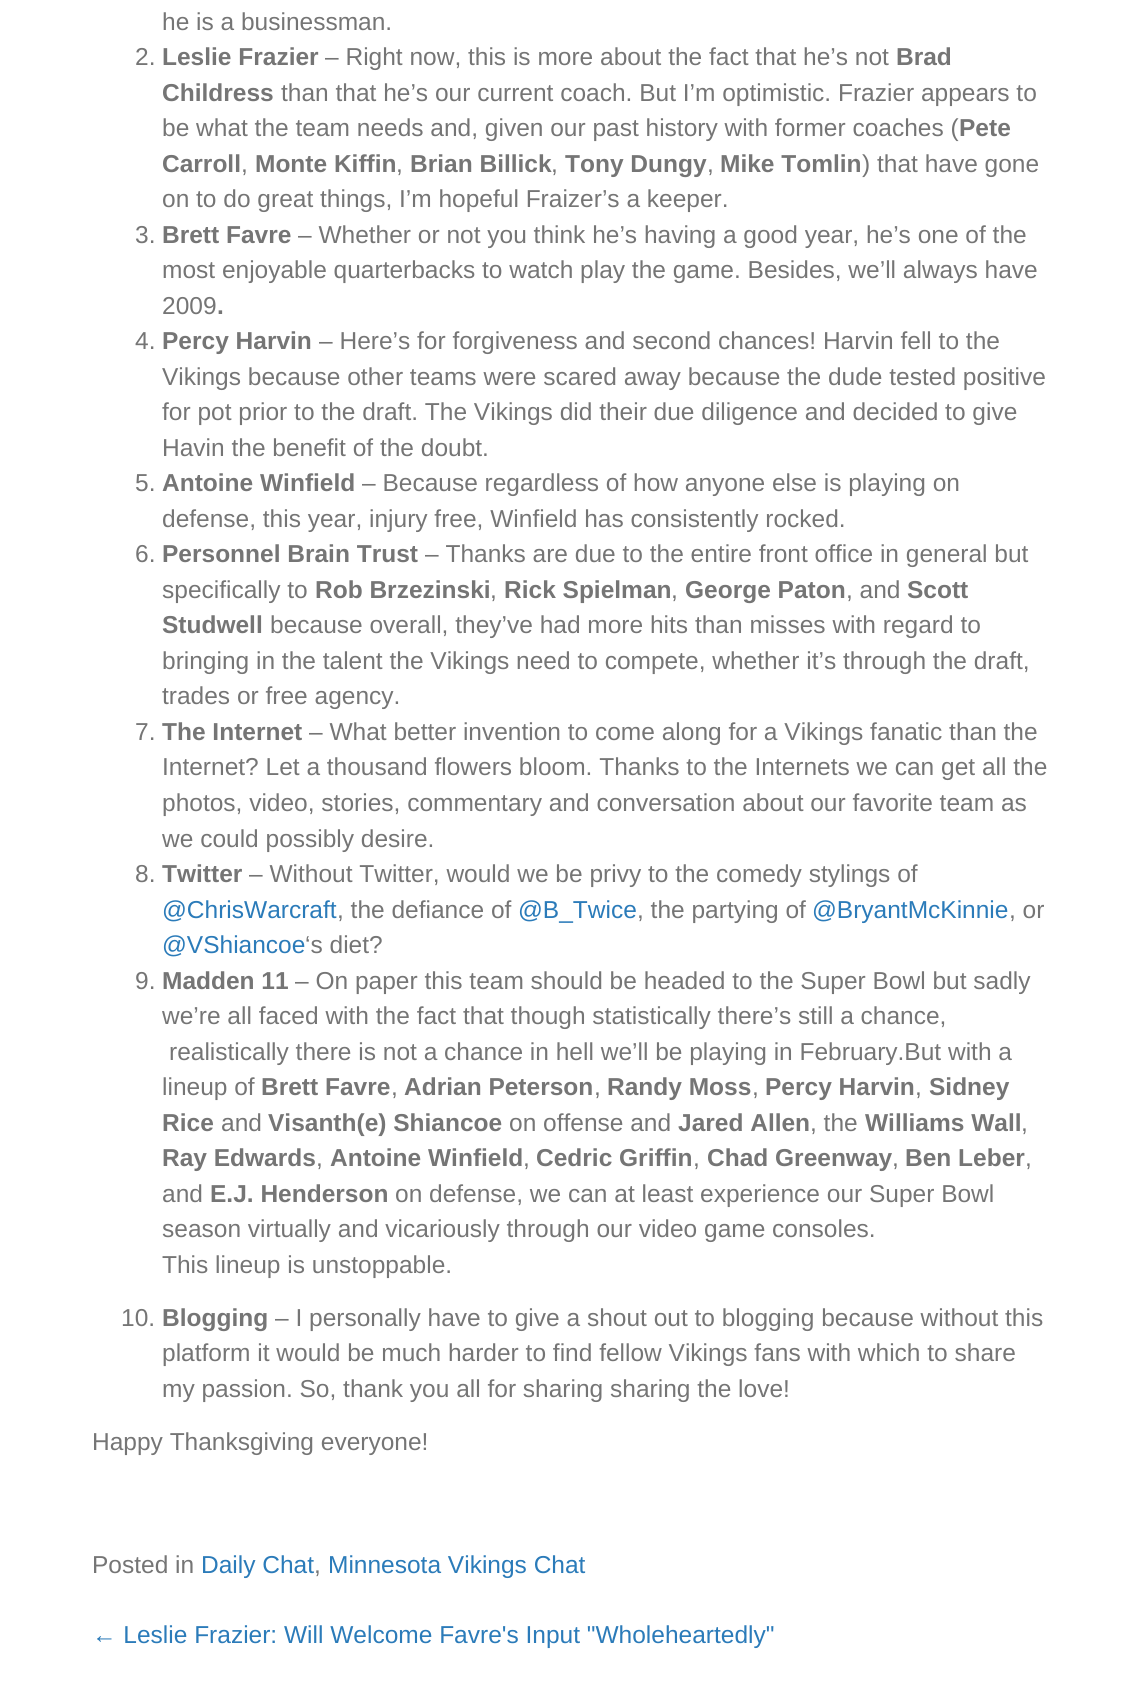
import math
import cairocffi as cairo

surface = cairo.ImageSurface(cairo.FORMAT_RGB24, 1141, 1688)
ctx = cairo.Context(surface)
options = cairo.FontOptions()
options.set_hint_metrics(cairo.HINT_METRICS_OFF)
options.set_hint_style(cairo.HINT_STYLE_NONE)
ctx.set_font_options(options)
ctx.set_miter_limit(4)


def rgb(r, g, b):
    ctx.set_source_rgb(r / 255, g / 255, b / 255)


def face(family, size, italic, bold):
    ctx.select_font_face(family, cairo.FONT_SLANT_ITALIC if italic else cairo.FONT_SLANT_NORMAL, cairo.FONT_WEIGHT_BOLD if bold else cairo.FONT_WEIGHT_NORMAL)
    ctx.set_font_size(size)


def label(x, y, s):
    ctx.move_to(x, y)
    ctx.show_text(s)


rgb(255, 255, 255)
ctx.paint()
face('Liberation Sans', 24.5, 0, 0)
rgb(117, 117, 117)
label(162, 30, 'he is a businessman.')
label(135, 65, '2.')
face('Liberation Sans', 24.5, 0, 1)
label(162, 65, 'Leslie Frazier')
face('Liberation Sans', 24.5, 0, 0)
label(325, 65, '– Right now, this is more about the fact that he’s not')
face('Liberation Sans', 24.5, 0, 1)
label(896, 65, 'Brad')
label(162, 101, 'Childress')
face('Liberation Sans', 24.5, 0, 0)
label(281, 101, 'than that he’s our current coach. But I’m optimistic. Frazier appears to')
label(162, 136, 'be what the team needs and, given our past history with former coaches (')
face('Liberation Sans', 24.5, 0, 1)
label(959, 136, 'Pete')
label(162, 172, 'Carroll')
face('Liberation Sans', 24.5, 0, 0)
label(241, 172, ',')
face('Liberation Sans', 24.5, 0, 1)
label(255, 172, 'Monte Kiffin')
face('Liberation Sans', 24.5, 0, 0)
label(396, 172, ',')
face('Liberation Sans', 24.5, 0, 1)
label(410, 172, 'Brian Billick')
face('Liberation Sans', 24.5, 0, 0)
label(551, 172, ',')
face('Liberation Sans', 24.5, 0, 1)
label(565, 172, 'Tony Dungy')
face('Liberation Sans', 24.5, 0, 0)
label(707, 172, ',')
face('Liberation Sans', 24.5, 0, 1)
label(720, 172, 'Mike Tomlin')
face('Liberation Sans', 24.5, 0, 0)
label(862, 172, ') that have gone')
label(162, 207, 'on to do great things, I’m hopeful Fraizer’s a keeper.')
label(135, 243, '3.')
face('Liberation Sans', 24.5, 0, 1)
label(162, 243, 'Brett Favre')
face('Liberation Sans', 24.5, 0, 0)
label(298, 243, '– Whether or not you think he’s having a good year, he’s one of the')
label(162, 278, 'most enjoyable quarterbacks to watch play the game. Besides, we’ll always have')
label(162, 314, '2009')
face('Liberation Sans', 24.5, 0, 1)
label(217, 314, '.')
face('Liberation Sans', 24.5, 0, 0)
label(135, 349, '4.')
face('Liberation Sans', 24.5, 0, 1)
label(162, 349, 'Percy Harvin')
face('Liberation Sans', 24.5, 0, 0)
label(319, 349, '– Here’s for forgiveness and second chances! Harvin fell to the')
label(162, 385, 'Vikings because other teams were scared away because the dude tested positive')
label(162, 420, 'for pot prior to the draft. The Vikings did their due diligence and decided to give')
label(162, 456, 'Havin the benefit of the doubt.')
label(135, 491, '5.')
face('Liberation Sans', 24.5, 0, 1)
label(162, 491, 'Antoine Winfield')
face('Liberation Sans', 24.5, 0, 0)
label(362, 491, '– Because regardless of how anyone else is playing on')
label(162, 527, 'defense, this year, injury free, Winfield has consistently rocked.')
label(135, 562, '6.')
face('Liberation Sans', 24.5, 0, 1)
label(162, 562, 'Personnel Brain Trust')
face('Liberation Sans', 24.5, 0, 0)
label(425, 562, '– Thanks are due to the entire front office in general but')
label(162, 598, 'specifically to')
face('Liberation Sans', 24.5, 0, 1)
label(315, 598, 'Rob Brzezinski')
face('Liberation Sans', 24.5, 0, 0)
label(490, 598, ',')
face('Liberation Sans', 24.5, 0, 1)
label(504, 598, 'Rick Spielman')
face('Liberation Sans', 24.5, 0, 0)
label(671, 598, ',')
face('Liberation Sans', 24.5, 0, 1)
label(685, 598, 'George Paton')
face('Liberation Sans', 24.5, 0, 0)
label(846, 598, ', and')
face('Liberation Sans', 24.5, 0, 1)
label(907, 598, 'Scott')
label(162, 633, 'Studwell')
face('Liberation Sans', 24.5, 0, 0)
label(270, 633, 'because overall, they’ve had more hits than misses with regard to')
label(162, 669, 'bringing in the talent the Vikings need to compete, whether it’s through the draft,')
label(162, 704, 'trades or free agency.')
label(135, 740, '7.')
face('Liberation Sans', 24.5, 0, 1)
label(162, 740, 'The Internet')
face('Liberation Sans', 24.5, 0, 0)
label(309, 740, '– What better invention to come along for a Vikings fanatic than the')
label(162, 775, 'Internet? Let a thousand flowers bloom. Thanks to the Internets we can get all the')
label(162, 811, 'photos, video, stories, commentary and conversation about our favorite team as')
label(162, 847, 'we could possibly desire.')
label(135, 882, '8.')
face('Liberation Sans', 24.5, 0, 1)
label(162, 882, 'Twitter')
face('Liberation Sans', 24.5, 0, 0)
label(249, 882, '– Without Twitter, would we be privy to the comedy stylings of')
rgb(43, 123, 185)
label(162, 918, '@ChrisWarcraft')
rgb(117, 117, 117)
label(337, 918, ', the defiance of')
rgb(43, 123, 185)
label(518, 918, '@B_Twice')
rgb(117, 117, 117)
label(637, 918, ', the partying of')
rgb(43, 123, 185)
label(812, 918, '@BryantMcKinnie')
rgb(117, 117, 117)
label(1009, 918, ', or')
rgb(43, 123, 185)
label(162, 953, '@VShiancoe')
rgb(117, 117, 117)
label(305, 953, '‘s diet?')
label(135, 989, '9.')
face('Liberation Sans', 24.5, 0, 1)
label(162, 989, 'Madden 11')
face('Liberation Sans', 24.5, 0, 0)
label(295, 989, '– On paper this team should be headed to the Super Bowl but sadly')
label(162, 1024, 'we’re all faced with the fact that though statistically there’s still a chance,')
label(169, 1060, 'realistically there is not a chance in hell we’ll be playing in February.But with a')
label(162, 1095, 'lineup of')
face('Liberation Sans', 24.5, 0, 1)
label(261, 1095, 'Brett Favre')
face('Liberation Sans', 24.5, 0, 0)
label(391, 1095, ',')
face('Liberation Sans', 24.5, 0, 1)
label(404, 1095, 'Adrian Peterson')
face('Liberation Sans', 24.5, 0, 0)
label(594, 1095, ',')
face('Liberation Sans', 24.5, 0, 1)
label(607, 1095, 'Randy Moss')
face('Liberation Sans', 24.5, 0, 0)
label(752, 1095, ',')
face('Liberation Sans', 24.5, 0, 1)
label(765, 1095, 'Percy Harvin')
face('Liberation Sans', 24.5, 0, 0)
label(915, 1095, ',')
face('Liberation Sans', 24.5, 0, 1)
label(929, 1095, 'Sidney')
label(162, 1131, 'Rice')
face('Liberation Sans', 24.5, 0, 0)
label(221, 1131, 'and')
face('Liberation Sans', 24.5, 0, 1)
label(268, 1131, 'Visanth(e) Shiancoe')
face('Liberation Sans', 24.5, 0, 0)
label(509, 1131, 'on offense and')
face('Liberation Sans', 24.5, 0, 1)
label(678, 1131, 'Jared Allen')
face('Liberation Sans', 24.5, 0, 0)
label(810, 1131, ', the')
face('Liberation Sans', 24.5, 0, 1)
label(865, 1131, 'Williams Wall')
face('Liberation Sans', 24.5, 0, 0)
label(1021, 1131, ',')
face('Liberation Sans', 24.5, 0, 1)
label(162, 1166, 'Ray Edwards')
face('Liberation Sans', 24.5, 0, 0)
label(316, 1166, ',')
face('Liberation Sans', 24.5, 0, 1)
label(330, 1166, 'Antoine Winfield')
face('Liberation Sans', 24.5, 0, 0)
label(523, 1166, ',')
face('Liberation Sans', 24.5, 0, 1)
label(536, 1166, 'Cedric Griffin')
face('Liberation Sans', 24.5, 0, 0)
label(693, 1166, ',')
face('Liberation Sans', 24.5, 0, 1)
label(707, 1166, 'Chad Greenway')
face('Liberation Sans', 24.5, 0, 0)
label(892, 1166, ',')
face('Liberation Sans', 24.5, 0, 1)
label(905, 1166, 'Ben Leber')
face('Liberation Sans', 24.5, 0, 0)
label(1025, 1166, ',')
label(162, 1202, 'and')
face('Liberation Sans', 24.5, 0, 1)
label(210, 1202, 'E.J. Henderson')
face('Liberation Sans', 24.5, 0, 0)
label(395, 1202, 'on defense, we can at least experience our Super Bowl')
label(162, 1237, 'season virtually and vicariously through our video game consoles.')
label(162, 1273, 'This lineup is unstoppable.')
label(121, 1326, '10.')
face('Liberation Sans', 24.5, 0, 1)
label(162, 1326, 'Blogging')
face('Liberation Sans', 24.5, 0, 0)
label(275, 1326, '– I personally have to give a shout out to blogging because without this')
label(162, 1361, 'platform it would be much harder to find fellow Vikings fans with which to share')
label(162, 1397, 'my passion. So, thank you all for sharing sharing the love!')
label(92, 1450, 'Happy Thanksgiving everyone!')
label(92, 1573, 'Posted in')
rgb(43, 123, 185)
label(201, 1573, 'Daily Chat')
rgb(117, 117, 117)
label(314, 1573, ',')
rgb(43, 123, 185)
label(328, 1573, 'Minnesota Vikings Chat')
label(92, 1643, '← Leslie Frazier: Will Welcome Favre\'s Input "Wholeheartedly"')
surface.write_to_png('render.png')
